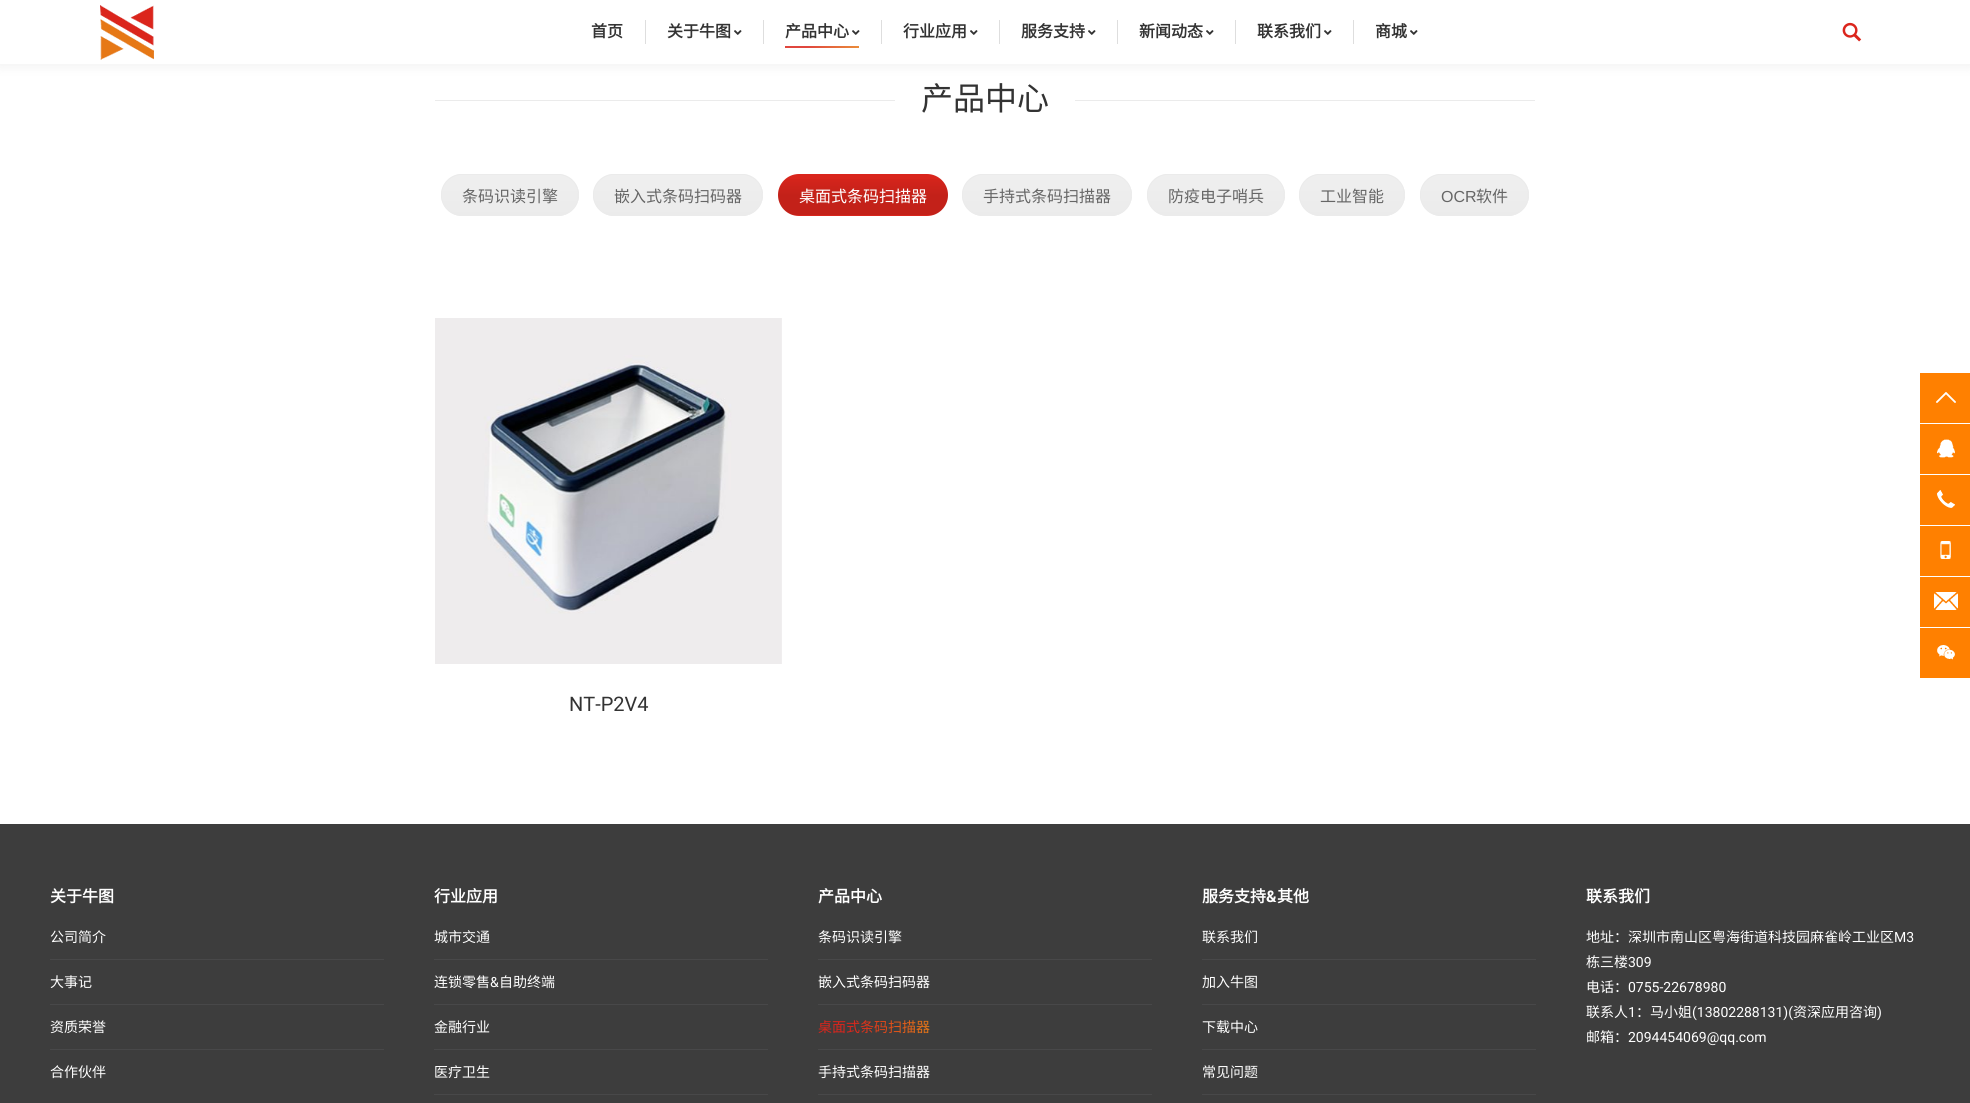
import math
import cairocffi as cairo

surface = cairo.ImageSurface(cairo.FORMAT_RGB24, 1970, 1103)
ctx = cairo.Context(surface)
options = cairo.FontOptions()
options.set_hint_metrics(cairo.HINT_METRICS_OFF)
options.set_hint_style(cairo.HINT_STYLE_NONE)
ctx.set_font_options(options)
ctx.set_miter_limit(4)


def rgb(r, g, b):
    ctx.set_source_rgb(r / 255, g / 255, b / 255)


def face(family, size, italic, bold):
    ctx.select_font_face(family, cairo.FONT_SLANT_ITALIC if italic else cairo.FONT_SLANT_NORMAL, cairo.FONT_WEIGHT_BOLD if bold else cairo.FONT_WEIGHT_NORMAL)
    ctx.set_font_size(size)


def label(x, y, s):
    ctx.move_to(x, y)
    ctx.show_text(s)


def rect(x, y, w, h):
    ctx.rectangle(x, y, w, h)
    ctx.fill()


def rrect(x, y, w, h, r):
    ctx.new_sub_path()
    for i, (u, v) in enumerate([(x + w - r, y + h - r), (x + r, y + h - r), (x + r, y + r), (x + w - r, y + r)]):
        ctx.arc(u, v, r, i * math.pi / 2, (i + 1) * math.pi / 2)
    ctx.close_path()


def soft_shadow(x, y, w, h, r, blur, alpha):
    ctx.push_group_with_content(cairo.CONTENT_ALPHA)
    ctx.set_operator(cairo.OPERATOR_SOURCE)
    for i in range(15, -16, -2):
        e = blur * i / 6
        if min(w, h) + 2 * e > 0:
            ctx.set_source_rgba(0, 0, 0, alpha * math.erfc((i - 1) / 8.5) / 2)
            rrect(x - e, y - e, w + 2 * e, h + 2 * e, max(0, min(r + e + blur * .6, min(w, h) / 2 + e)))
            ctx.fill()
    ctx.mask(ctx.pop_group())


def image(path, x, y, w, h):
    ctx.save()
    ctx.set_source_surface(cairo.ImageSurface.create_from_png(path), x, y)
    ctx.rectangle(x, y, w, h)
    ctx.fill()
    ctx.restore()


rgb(255, 255, 255)
ctx.paint()
rgb(0, 0, 0)
soft_shadow(-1, -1, 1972, 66, 0, 7.5, 0.07)
rgb(255, 255, 255)
rect(0, 0, 1970, 64)
image('image0.png', 100, 5, 54, 55)
face('Noto Sans CJK SC', 16, 0, 1)
rgb(51, 51, 51)
label(591, 37, '首页')
rgb(222, 222, 222)
rect(645, 20, 1, 24)
rgb(51, 51, 51)
label(667, 37, '关于牛图')
image('image1.png', 734, 30, 8, 5)
rgb(222, 222, 222)
rect(763, 20, 1, 24)
rgb(51, 51, 51)
label(785, 37, '产品中心')
image('image1.png', 852, 30, 8, 5)
gradient = cairo.LinearGradient(785, 47, 859, 47)
gradient.add_color_stop_rgba(0.3, 0.878, 0.275, 0.243, 1)
gradient.add_color_stop_rgba(1, 0.918, 0.549, 0.227, 1)
ctx.set_source(gradient)
rect(785, 46, 74, 2)
rgb(222, 222, 222)
rect(881, 20, 1, 24)
rgb(51, 51, 51)
label(903, 37, '行业应用')
image('image1.png', 970, 30, 8, 5)
rgb(222, 222, 222)
rect(999, 20, 1, 24)
rgb(51, 51, 51)
label(1021, 37, '服务支持')
image('image1.png', 1088, 30, 8, 5)
rgb(222, 222, 222)
rect(1117, 20, 1, 24)
rgb(51, 51, 51)
label(1139, 37, '新闻动态')
image('image1.png', 1206, 30, 8, 5)
rgb(222, 222, 222)
rect(1235, 20, 1, 24)
rgb(51, 51, 51)
label(1257, 37, '联系我们')
image('image1.png', 1324, 30, 8, 5)
rgb(222, 222, 222)
rect(1353, 20, 1, 24)
rgb(51, 51, 51)
label(1375, 37, '商城')
image('image1.png', 1410, 30, 8, 5)
image('image2.png', 1842, 22, 20, 20)
rgb(235, 235, 235)
rect(435, 100, 460, 1)
face('Noto Sans CJK SC', 32, 0, 0)
rgb(51, 51, 51)
label(921, 110, '产品中心')
rgb(235, 235, 235)
rect(1075, 100, 460, 1)
rrect(441, 174, 138, 42, 21)
ctx.fill()
ctx.save()
rrect(441, 174, 138, 42, 21)
ctx.clip()
gradient = cairo.LinearGradient(510, 175, 510, 215)
gradient.add_color_stop_rgba(0, 1, 1, 1, 0.2)
gradient.add_color_stop_rgba(1, 1, 1, 1, 0.01)
ctx.set_source(gradient)
rect(441, 175, 138, 38)
ctx.restore()
rrect(441.5, 174.5, 137, 41, 20.5)
ctx.set_line_width(1)
ctx.stroke()
face('Noto Sans CJK SC', 16, 0, 0)
rgb(102, 102, 102)
label(462, 202, '条码识读引擎')
rgb(235, 235, 235)
rrect(593, 174, 170, 42, 21)
ctx.fill()
ctx.save()
rrect(593, 174, 170, 42, 21)
ctx.clip()
gradient = cairo.LinearGradient(678, 175, 678, 215)
gradient.add_color_stop_rgba(0, 1, 1, 1, 0.2)
gradient.add_color_stop_rgba(1, 1, 1, 1, 0.01)
ctx.set_source(gradient)
rect(593, 175, 170, 38)
ctx.restore()
rrect(593.5, 174.5, 169, 41, 20.5)
ctx.stroke()
rgb(102, 102, 102)
label(614, 202, '嵌入式条码扫码器')
rgb(217, 37, 28)
rrect(778, 174, 170, 42, 21)
ctx.fill()
ctx.save()
rrect(778, 174, 170, 42, 21)
ctx.clip()
gradient = cairo.LinearGradient(947, 175, 947, 215)
gradient.add_color_stop_rgba(0, 0, 0, 0, 0)
gradient.add_color_stop_rgba(0.5, 0, 0, 0, 0.1)
gradient.add_color_stop_rgba(1, 0, 0, 0, 0.1)
ctx.set_source(gradient)
rect(778, 179, 170, 36)
ctx.restore()
rgb(255, 255, 255)
label(799, 202, '桌面式条码扫描器')
rgb(235, 235, 235)
rrect(962, 174, 170, 42, 21)
ctx.fill()
ctx.save()
rrect(962, 174, 170, 42, 21)
ctx.clip()
gradient = cairo.LinearGradient(1047, 175, 1047, 215)
gradient.add_color_stop_rgba(0, 1, 1, 1, 0.2)
gradient.add_color_stop_rgba(1, 1, 1, 1, 0.01)
ctx.set_source(gradient)
rect(962, 175, 170, 38)
ctx.restore()
rrect(962.5, 174.5, 169, 41, 20.5)
ctx.stroke()
rgb(102, 102, 102)
label(983, 202, '手持式条码扫描器')
rgb(235, 235, 235)
rrect(1147, 174, 138, 42, 21)
ctx.fill()
ctx.save()
rrect(1147, 174, 138, 42, 21)
ctx.clip()
gradient = cairo.LinearGradient(1216, 175, 1216, 215)
gradient.add_color_stop_rgba(0, 1, 1, 1, 0.2)
gradient.add_color_stop_rgba(1, 1, 1, 1, 0.01)
ctx.set_source(gradient)
rect(1147, 175, 138, 38)
ctx.restore()
rrect(1147.5, 174.5, 137, 41, 20.5)
ctx.stroke()
rgb(102, 102, 102)
label(1168, 202, '防疫电子哨兵')
rgb(235, 235, 235)
rrect(1299, 174, 106, 42, 21)
ctx.fill()
ctx.save()
rrect(1299, 174, 106, 42, 21)
ctx.clip()
gradient = cairo.LinearGradient(1352, 175, 1352, 215)
gradient.add_color_stop_rgba(0, 1, 1, 1, 0.2)
gradient.add_color_stop_rgba(1, 1, 1, 1, 0.01)
ctx.set_source(gradient)
rect(1299, 175, 106, 38)
ctx.restore()
rrect(1299.5, 174.5, 105, 41, 20.5)
ctx.stroke()
rgb(102, 102, 102)
label(1320, 202, '工业智能')
rgb(235, 235, 235)
rrect(1420, 174, 109, 42, 21)
ctx.fill()
ctx.save()
rrect(1420, 174, 109, 42, 21)
ctx.clip()
gradient = cairo.LinearGradient(1475, 175, 1475, 215)
gradient.add_color_stop_rgba(0, 1, 1, 1, 0.2)
gradient.add_color_stop_rgba(1, 1, 1, 1, 0.01)
ctx.set_source(gradient)
rect(1420, 175, 109, 38)
ctx.restore()
rrect(1420.5, 174.5, 108, 41, 20.5)
ctx.stroke()
face('Liberation Sans', 16, 0, 0)
rgb(102, 102, 102)
label(1441, 202, 'OCR')
face('Noto Sans CJK SC', 16, 0, 0)
label(1476, 202, '软件')
image('image3.png', 435, 318, 347, 346)
face('Roboto', 20, 0, 0)
rgb(51, 51, 51)
label(569, 711, 'NT-P2V4')
rgb(61, 61, 61)
rect(0, 824, 1970, 279)
face('Noto Sans CJK SC', 16, 0, 1)
rgb(255, 255, 255)
label(50, 902, '关于牛图')
face('Noto Sans CJK SC', 14, 0, 0)
label(50, 942, '公司简介')
rgb(72, 72, 73)
rect(50, 959, 334, 1)
rgb(255, 255, 255)
label(50, 987, '大事记')
rgb(72, 72, 73)
rect(50, 1004, 334, 1)
rgb(255, 255, 255)
label(50, 1032, '资质荣誉')
rgb(72, 72, 73)
rect(50, 1049, 334, 1)
rgb(255, 255, 255)
label(50, 1077, '合作伙伴')
face('Noto Sans CJK SC', 16, 0, 1)
label(434, 902, '行业应用')
face('Noto Sans CJK SC', 14, 0, 0)
label(434, 942, '城市交通')
rgb(72, 72, 73)
rect(434, 959, 334, 1)
rgb(255, 255, 255)
label(434, 987, '连锁零售')
face('Roboto', 14, 0, 0)
label(490, 987, '&')
face('Noto Sans CJK SC', 14, 0, 0)
label(499, 987, '自助终端')
rgb(72, 72, 73)
rect(434, 1004, 334, 1)
rgb(255, 255, 255)
label(434, 1032, '金融行业')
rgb(72, 72, 73)
rect(434, 1049, 334, 1)
rgb(255, 255, 255)
label(434, 1077, '医疗卫生')
rgb(72, 72, 73)
rect(434, 1094, 334, 1)
face('Noto Sans CJK SC', 16, 0, 1)
rgb(255, 255, 255)
label(818, 902, '产品中心')
face('Noto Sans CJK SC', 14, 0, 0)
label(818, 942, '条码识读引擎')
rgb(72, 72, 73)
rect(818, 959, 334, 1)
rgb(255, 255, 255)
label(818, 987, '嵌入式条码扫码器')
rgb(72, 72, 73)
rect(818, 1004, 334, 1)
gradient = cairo.LinearGradient(818, 1028, 930, 1028)
gradient.add_color_stop_rgba(0.3, 0.855, 0.145, 0.11, 1)
gradient.add_color_stop_rgba(1, 0.902, 0.471, 0.09, 1)
ctx.set_source(gradient)
label(818, 1032, '桌面式条码扫描器')
rgb(72, 72, 73)
rect(818, 1049, 334, 1)
rgb(255, 255, 255)
label(818, 1077, '手持式条码扫描器')
rgb(72, 72, 73)
rect(818, 1094, 334, 1)
face('Noto Sans CJK SC', 16, 0, 1)
rgb(255, 255, 255)
label(1202, 902, '服务支持')
face('Roboto', 16, 0, 1)
label(1266, 902, '&')
face('Noto Sans CJK SC', 16, 0, 1)
label(1277, 902, '其他')
face('Noto Sans CJK SC', 14, 0, 0)
label(1202, 942, '联系我们')
rgb(72, 72, 73)
rect(1202, 959, 334, 1)
rgb(255, 255, 255)
label(1202, 987, '加入牛图')
rgb(72, 72, 73)
rect(1202, 1004, 334, 1)
rgb(255, 255, 255)
label(1202, 1032, '下载中心')
rgb(72, 72, 73)
rect(1202, 1049, 334, 1)
rgb(255, 255, 255)
label(1202, 1077, '常见问题')
rgb(72, 72, 73)
rect(1202, 1094, 334, 1)
face('Noto Sans CJK SC', 16, 0, 1)
rgb(255, 255, 255)
label(1586, 902, '联系我们')
face('Noto Sans CJK SC', 14, 0, 0)
label(1586, 942, '地址：深圳市南山区粤海街道科技园麻雀岭工业区')
face('Roboto', 14, 0, 0)
label(1894, 942, 'M3')
face('Noto Sans CJK SC', 14, 0, 0)
label(1586, 967, '栋三楼')
face('Roboto', 14, 0, 0)
label(1628, 967, '309')
face('Noto Sans CJK SC', 14, 0, 0)
label(1586, 992, '电话：')
face('Roboto', 14, 0, 0)
label(1628, 992, '0755-22678980')
face('Noto Sans CJK SC', 14, 0, 0)
label(1586, 1017, '联系人')
face('Roboto', 14, 0, 0)
label(1628, 1017, '1')
face('Noto Sans CJK SC', 14, 0, 0)
label(1636, 1017, '：马小姐')
face('Roboto', 14, 0, 0)
label(1692, 1017, '(13802288131)(')
face('Noto Sans CJK SC', 14, 0, 0)
label(1793, 1017, '资深应用咨询')
face('Roboto', 14, 0, 0)
label(1877, 1017, ')')
face('Noto Sans CJK SC', 14, 0, 0)
label(1586, 1042, '邮箱：')
face('Roboto', 14, 0, 0)
label(1628, 1042, '2094454069@qq.com')
rgb(255, 128, 0)
rect(1920, 373, 50, 305)
rgb(255, 255, 255)
rect(1920, 423, 50, 1)
image('image4.png', 1936, 392, 20, 11)
rect(1920, 474, 50, 1)
image('image5.png', 1937, 439, 18, 19)
rect(1920, 525, 50, 1)
image('image6.png', 1937, 490, 18, 18)
rect(1920, 576, 50, 1)
image('image7.png', 1940, 541, 11, 18)
rect(1920, 627, 50, 1)
image('image8.png', 1934, 592, 24, 18)
image('image9.png', 1937, 645, 18, 15)
surface.write_to_png('render.png')
